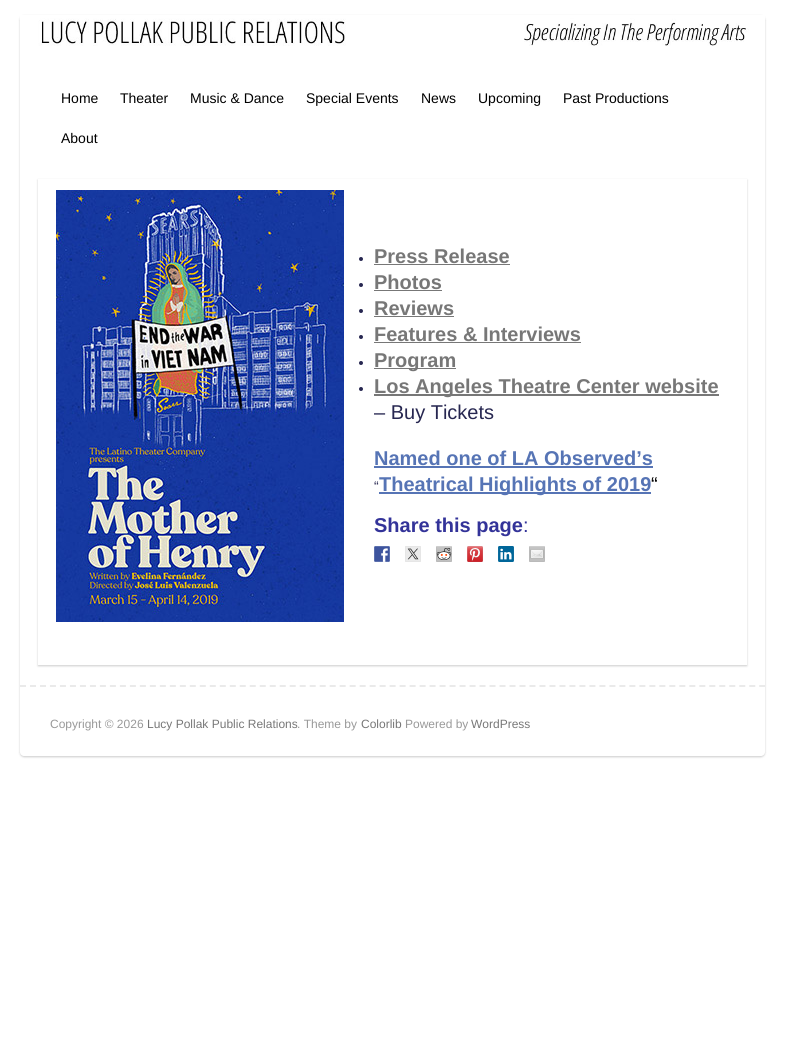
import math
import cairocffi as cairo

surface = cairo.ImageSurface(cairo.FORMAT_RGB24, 785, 1062)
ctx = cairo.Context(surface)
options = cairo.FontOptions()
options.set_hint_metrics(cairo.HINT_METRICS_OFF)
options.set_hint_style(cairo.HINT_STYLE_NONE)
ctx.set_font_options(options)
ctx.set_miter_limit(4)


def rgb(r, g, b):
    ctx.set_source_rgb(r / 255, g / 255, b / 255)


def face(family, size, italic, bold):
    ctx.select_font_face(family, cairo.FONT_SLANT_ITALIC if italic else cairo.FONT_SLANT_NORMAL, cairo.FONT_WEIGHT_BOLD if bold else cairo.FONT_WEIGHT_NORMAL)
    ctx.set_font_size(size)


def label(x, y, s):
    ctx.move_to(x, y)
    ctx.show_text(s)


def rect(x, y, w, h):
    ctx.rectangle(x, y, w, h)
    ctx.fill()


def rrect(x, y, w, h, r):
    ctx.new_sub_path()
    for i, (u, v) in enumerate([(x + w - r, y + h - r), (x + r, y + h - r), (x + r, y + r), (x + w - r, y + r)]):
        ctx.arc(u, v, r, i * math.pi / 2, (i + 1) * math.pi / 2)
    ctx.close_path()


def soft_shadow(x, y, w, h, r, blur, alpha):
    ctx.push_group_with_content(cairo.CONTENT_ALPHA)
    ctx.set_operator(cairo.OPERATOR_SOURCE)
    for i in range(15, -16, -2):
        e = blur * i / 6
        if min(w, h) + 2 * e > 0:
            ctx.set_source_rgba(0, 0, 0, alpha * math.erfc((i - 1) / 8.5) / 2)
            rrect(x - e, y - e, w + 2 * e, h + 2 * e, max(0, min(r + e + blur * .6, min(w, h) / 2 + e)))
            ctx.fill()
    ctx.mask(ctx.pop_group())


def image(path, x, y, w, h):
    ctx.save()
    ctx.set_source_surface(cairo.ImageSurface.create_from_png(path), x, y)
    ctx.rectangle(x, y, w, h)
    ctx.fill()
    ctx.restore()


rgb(255, 255, 255)
ctx.paint()
rgb(0, 0, 0)
soft_shadow(20, 16, 745, 741, 4, 1, 0.2)
rgb(255, 255, 255)
rrect(20, 15, 745, 741, 4)
ctx.fill()
image('image0.png', 20, 15, 745, 31)
face('Liberation Sans', 14, 0, 0)
rgb(0, 0, 0)
label(61, 103, 'Home')
label(120, 103, 'Theater')
label(190, 103, 'Music & Dance')
label(306, 103, 'Special Events')
label(421, 103, 'News')
label(478, 103, 'Upcoming')
label(563, 103, 'Past Productions')
label(61, 143, 'About')
ctx.save()
ctx.set_fill_rule(cairo.FILL_RULE_EVEN_ODD)
ctx.new_path()
ctx.move_to(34, 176)
ctx.line_to(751, 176)
ctx.line_to(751, 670)
ctx.line_to(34, 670)
ctx.close_path()
ctx.move_to(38, 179)
ctx.line_to(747, 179)
ctx.line_to(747, 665)
ctx.line_to(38, 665)
ctx.close_path()
ctx.clip()
rgb(0, 0, 0)
soft_shadow(38, 180, 709, 486, 0, 1, 0.2)
ctx.restore()
image('image1.png', 56, 190, 288, 432)
rgb(39, 39, 81)
ctx.arc(361, 259, 2, 0, 2 * math.pi)
ctx.fill()
face('Liberation Sans', 20, 0, 1)
rgb(119, 119, 119)
label(374, 263, 'Press Release')
rect(374, 264, 136, 1)
rgb(39, 39, 81)
ctx.new_path()
ctx.arc(361, 285, 2, 0, 2 * math.pi)
ctx.fill()
rgb(119, 119, 119)
label(374, 289, 'Photos')
rect(374, 290, 68, 1)
rgb(39, 39, 81)
ctx.new_path()
ctx.arc(361, 311, 2, 0, 2 * math.pi)
ctx.fill()
rgb(119, 119, 119)
label(374, 315, 'Reviews')
rect(374, 316, 80, 1)
rgb(39, 39, 81)
ctx.new_path()
ctx.arc(361, 337, 2, 0, 2 * math.pi)
ctx.fill()
rgb(119, 119, 119)
label(374, 341, 'Features & Interviews')
rect(374, 342, 207, 1)
rgb(39, 39, 81)
ctx.new_path()
ctx.arc(361, 363, 2, 0, 2 * math.pi)
ctx.fill()
rgb(119, 119, 119)
rect(374, 368, 82, 1)
label(374, 367, 'Program')
rgb(39, 39, 81)
ctx.new_path()
ctx.arc(361, 389, 2, 0, 2 * math.pi)
ctx.fill()
rgb(119, 119, 119)
rect(374, 394, 345, 2)
label(374, 393, 'Los Angeles Theatre Center website')
face('Liberation Sans', 20, 0, 0)
rgb(39, 39, 81)
label(374, 419, '– Buy Tickets')
face('Liberation Sans', 20, 0, 1)
rgb(86, 116, 181)
label(374, 465, 'Named one of LA Observed’s')
rect(374, 466, 279, 2)
rect(379, 492, 272, 2)
face('Liberation Sans', 14, 0, 0)
rgb(39, 39, 81)
label(374, 491, '“')
face('Liberation Sans', 20, 0, 1)
rgb(86, 116, 181)
label(379, 491, 'Theatrical Highlights of 2019')
face('Liberation Sans', 20, 0, 0)
rgb(0, 0, 0)
label(651, 491, '“')
face('Liberation Sans', 20, 0, 1)
rgb(51, 51, 153)
label(374, 532, 'Share this page')
face('Liberation Sans', 20, 0, 0)
label(523, 532, ':')
image('image2.png', 374, 546, 16, 16)
image('image3.png', 405, 546, 16, 16)
image('image4.png', 436, 546, 16, 16)
image('image5.png', 467, 546, 16, 16)
image('image6.png', 498, 546, 16, 16)
image('image7.png', 529, 546, 16, 16)
ctx.new_path()
ctx.move_to(20, 686)
ctx.line_to(765, 686)
rgb(234, 234, 234)
ctx.set_dash([6, 3.99])
ctx.stroke()
face('Liberation Sans', 12, 0, 0)
rgb(153, 153, 153)
label(50, 728, 'Copyright © 2026')
rgb(119, 119, 119)
label(147, 728, 'Lucy Pollak Public Relations')
rgb(153, 153, 153)
label(297, 728, '. Theme by')
rgb(119, 119, 119)
label(361, 728, 'Colorlib')
rgb(153, 153, 153)
label(405, 728, 'Powered by')
rgb(119, 119, 119)
label(471, 728, 'WordPress')
surface.write_to_png('render.png')
